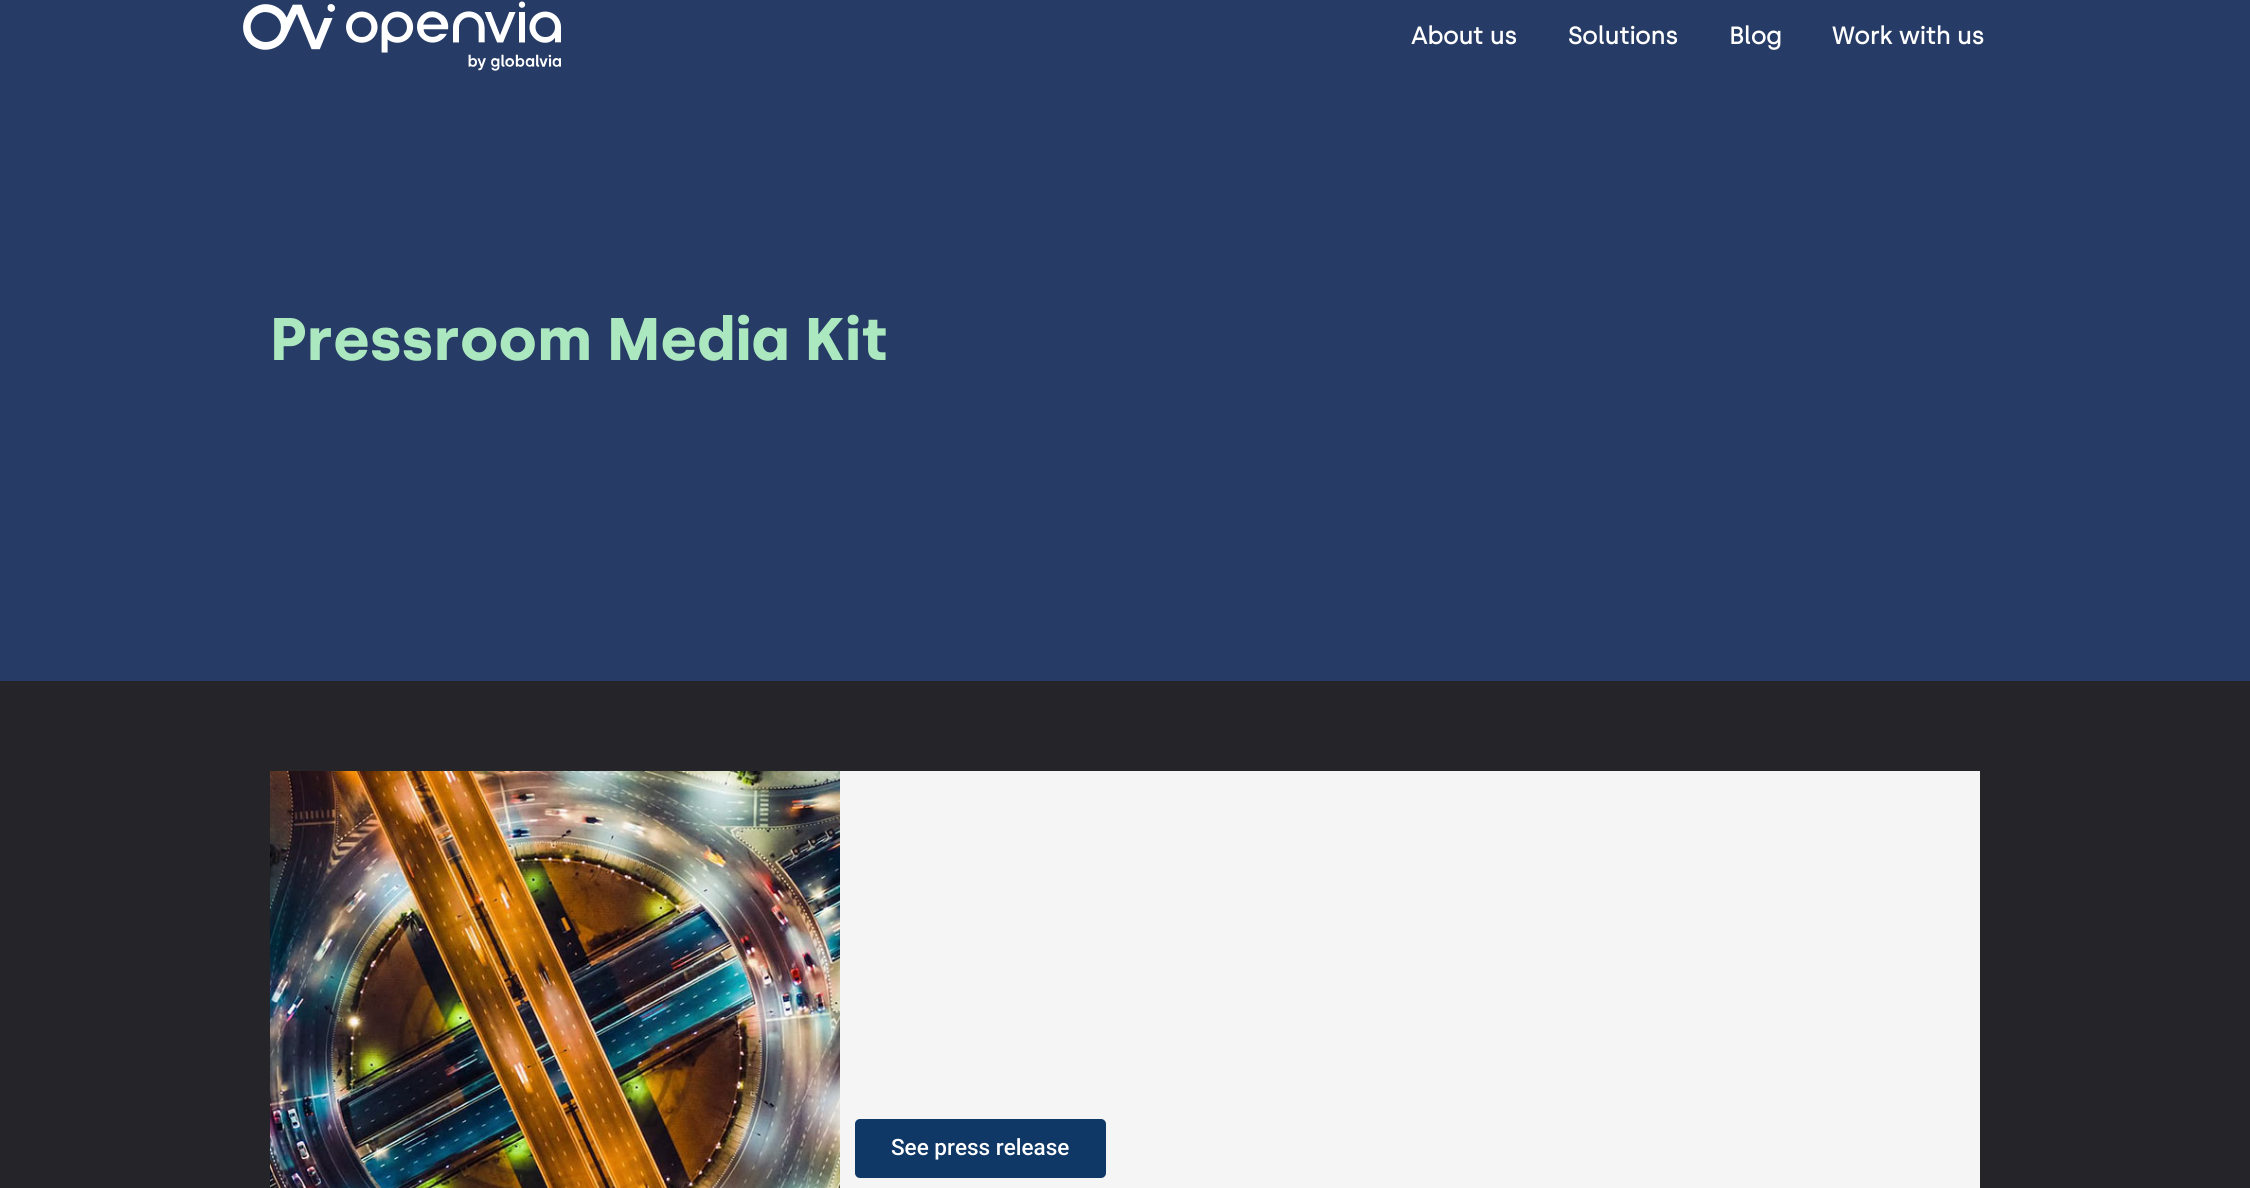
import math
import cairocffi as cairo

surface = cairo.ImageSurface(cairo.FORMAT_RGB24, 2250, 1188)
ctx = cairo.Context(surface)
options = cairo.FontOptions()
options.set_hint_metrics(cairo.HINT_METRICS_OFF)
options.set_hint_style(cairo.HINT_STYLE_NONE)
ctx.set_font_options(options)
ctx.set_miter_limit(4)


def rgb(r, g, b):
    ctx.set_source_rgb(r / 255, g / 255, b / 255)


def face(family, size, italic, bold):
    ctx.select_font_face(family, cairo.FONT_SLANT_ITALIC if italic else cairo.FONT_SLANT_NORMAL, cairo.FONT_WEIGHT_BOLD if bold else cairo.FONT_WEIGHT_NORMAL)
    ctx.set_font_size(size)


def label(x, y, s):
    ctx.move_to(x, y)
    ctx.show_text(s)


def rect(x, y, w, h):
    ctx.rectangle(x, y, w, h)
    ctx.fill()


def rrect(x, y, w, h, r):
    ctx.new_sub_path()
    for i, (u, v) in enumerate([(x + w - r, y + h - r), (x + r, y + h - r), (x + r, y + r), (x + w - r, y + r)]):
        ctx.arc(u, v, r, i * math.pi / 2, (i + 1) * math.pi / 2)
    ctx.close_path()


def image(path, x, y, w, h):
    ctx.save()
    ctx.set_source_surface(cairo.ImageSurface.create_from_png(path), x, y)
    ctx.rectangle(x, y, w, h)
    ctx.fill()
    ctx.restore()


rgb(36, 36, 41)
ctx.paint()
rgb(38, 59, 101)
rect(0, 0, 2250, 681)
image('image0.png', 243, 1, 318, 70)
face('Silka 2', 24, 0, 1)
rgb(255, 255, 255)
label(1411, 44, 'About us')
label(1568, 44, 'Solutions')
label(1729, 44, 'Blog')
label(1832, 44, 'Work with us')
face('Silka', 60, 0, 1)
rgb(171, 232, 191)
label(270, 360, 'Pressroom Media Kit')
image('image1.png', 270, 771, 570, 417)
rgb(245, 245, 245)
rect(840, 771, 1140, 417)
rgb(15, 56, 102)
rrect(855, 1119, 251, 59, 5)
ctx.fill()
face('Roboto Medium', 22.5, 0, 0)
rgb(255, 255, 255)
label(891, 1155, 'See press release')
surface.write_to_png('render.png')
